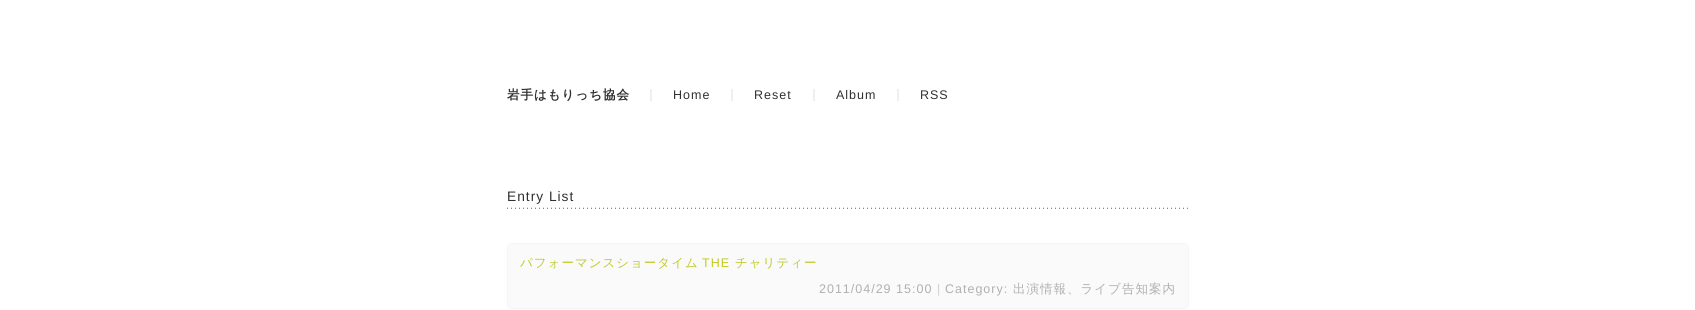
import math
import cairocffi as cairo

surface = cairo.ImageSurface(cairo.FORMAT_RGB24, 1695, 310)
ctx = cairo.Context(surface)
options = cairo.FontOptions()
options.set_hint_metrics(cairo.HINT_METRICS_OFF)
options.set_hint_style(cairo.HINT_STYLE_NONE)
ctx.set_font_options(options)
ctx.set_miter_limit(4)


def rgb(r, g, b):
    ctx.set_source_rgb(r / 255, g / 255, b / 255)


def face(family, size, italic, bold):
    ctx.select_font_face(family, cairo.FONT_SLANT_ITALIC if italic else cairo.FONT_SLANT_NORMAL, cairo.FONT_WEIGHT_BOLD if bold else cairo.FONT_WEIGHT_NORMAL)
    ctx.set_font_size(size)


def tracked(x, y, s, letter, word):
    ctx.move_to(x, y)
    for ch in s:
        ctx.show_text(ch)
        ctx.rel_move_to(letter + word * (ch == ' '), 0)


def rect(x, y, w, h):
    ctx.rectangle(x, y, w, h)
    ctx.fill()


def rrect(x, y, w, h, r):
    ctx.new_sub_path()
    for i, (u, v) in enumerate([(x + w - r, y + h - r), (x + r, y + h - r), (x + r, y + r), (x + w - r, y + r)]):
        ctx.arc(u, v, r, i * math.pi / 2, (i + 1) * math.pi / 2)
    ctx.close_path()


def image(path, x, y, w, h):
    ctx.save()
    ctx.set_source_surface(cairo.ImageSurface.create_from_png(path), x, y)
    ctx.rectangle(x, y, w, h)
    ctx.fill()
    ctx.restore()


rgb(255, 255, 255)
ctx.paint()
face('WenQuanYi Zen Hei', 12.5, 0, 1)
rgb(48, 48, 48)
tracked(507, 99, '岩手はもりっち協会', 1, 0)
rgb(239, 239, 239)
rect(650, 89, 2, 12)
face('Liberation Sans', 12.5, 0, 0)
rgb(48, 48, 48)
tracked(673, 99, 'Home', 1, 0)
rgb(239, 239, 239)
rect(731, 89, 2, 12)
rgb(48, 48, 48)
tracked(754, 99, 'Reset', 1, 0)
rgb(239, 239, 239)
rect(813, 89, 2, 12)
rgb(48, 48, 48)
tracked(836, 99, 'Album', 1, 0)
rgb(239, 239, 239)
rect(897, 89, 2, 12)
rgb(48, 48, 48)
tracked(920, 99, 'RSS', 1, 0)
image('image0.png', 507, 207, 681, 2)
face('Liberation Sans', 13.75, 0, 0)
tracked(507, 201, 'Entry List', 1, 0)
rgb(250, 250, 250)
rrect(507.5, 243.5, 681, 65, 4.5)
ctx.fill_preserve()
rgb(245, 245, 245)
ctx.set_line_width(1)
ctx.stroke()
face('WenQuanYi Zen Hei Medium', 12.5, 0, 0)
rgb(193, 202, 41)
tracked(520, 267, 'パフォーマンスショータイム', 1, 0)
face('Liberation Sans', 12.5, 0, 0)
tracked(702, 267, 'THE', 1, 0)
face('WenQuanYi Zen Hei Medium', 12.5, 0, 0)
tracked(735, 267, 'チャリティー', 1, 0)
face('Liberation Sans', 12.5, 0, 0)
rgb(176, 176, 176)
tracked(819, 293, '2011/04/29 15:00', 1, 0)
rgb(208, 208, 208)
tracked(937, 293, '|', 1, 0)
rgb(176, 176, 176)
tracked(945, 293, 'Category:', 1, 0)
face('WenQuanYi Zen Hei Medium', 12.5, 0, 0)
tracked(1013, 293, '出演情報、ライブ告知案内', 1, 0)
surface.write_to_png('render.png')
